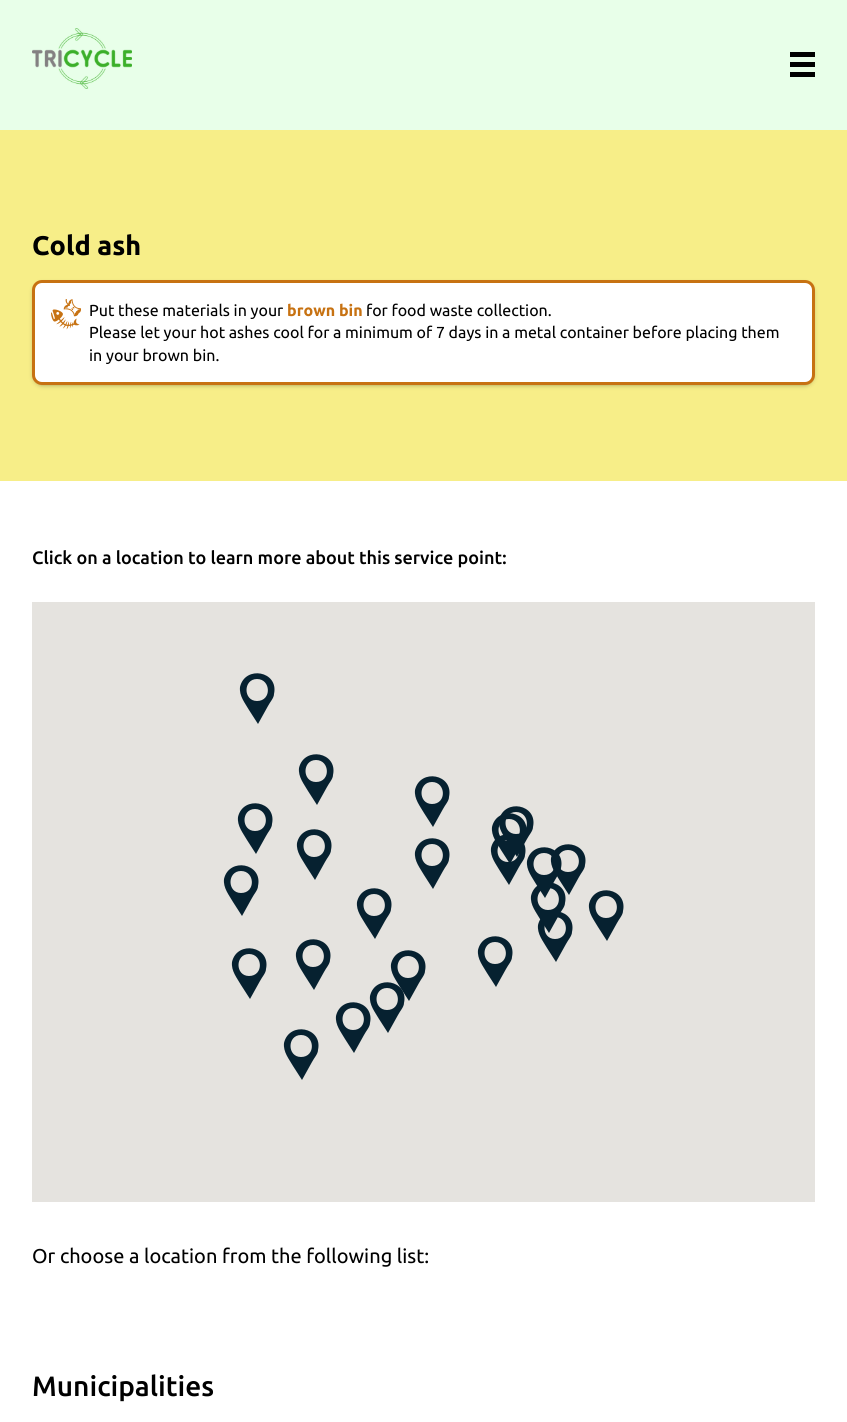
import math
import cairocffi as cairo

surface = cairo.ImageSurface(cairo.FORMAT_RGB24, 847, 1422)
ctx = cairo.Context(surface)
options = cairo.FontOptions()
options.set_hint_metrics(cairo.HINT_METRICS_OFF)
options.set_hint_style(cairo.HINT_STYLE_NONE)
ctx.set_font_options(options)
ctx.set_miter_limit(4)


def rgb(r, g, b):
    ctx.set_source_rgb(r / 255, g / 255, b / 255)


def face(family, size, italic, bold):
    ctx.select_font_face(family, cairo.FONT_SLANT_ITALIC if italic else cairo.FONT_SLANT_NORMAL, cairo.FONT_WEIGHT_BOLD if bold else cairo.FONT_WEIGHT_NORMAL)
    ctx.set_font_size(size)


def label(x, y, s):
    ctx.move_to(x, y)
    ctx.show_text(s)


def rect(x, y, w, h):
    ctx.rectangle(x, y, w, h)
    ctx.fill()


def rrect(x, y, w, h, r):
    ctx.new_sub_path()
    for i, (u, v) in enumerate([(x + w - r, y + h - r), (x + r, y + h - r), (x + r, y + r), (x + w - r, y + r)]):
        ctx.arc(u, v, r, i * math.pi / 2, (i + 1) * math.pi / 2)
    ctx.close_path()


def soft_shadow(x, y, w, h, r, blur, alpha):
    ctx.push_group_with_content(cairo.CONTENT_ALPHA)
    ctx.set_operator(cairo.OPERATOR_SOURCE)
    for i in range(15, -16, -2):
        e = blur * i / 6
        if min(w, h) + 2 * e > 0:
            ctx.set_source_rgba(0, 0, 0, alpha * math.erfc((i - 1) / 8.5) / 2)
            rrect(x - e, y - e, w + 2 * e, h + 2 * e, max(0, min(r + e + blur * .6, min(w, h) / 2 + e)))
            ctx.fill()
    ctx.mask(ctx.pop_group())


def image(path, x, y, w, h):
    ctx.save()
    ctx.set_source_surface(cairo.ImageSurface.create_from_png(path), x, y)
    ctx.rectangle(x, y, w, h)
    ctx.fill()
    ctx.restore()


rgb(255, 255, 255)
ctx.paint()
rgb(232, 255, 233)
rect(0, 0, 847, 130)
image('image0.png', 32, 28, 100, 61)
rgb(0, 0, 0)
rect(790, 52, 25, 25)
rgb(232, 255, 233)
rect(789, 57, 27, 5)
rect(789, 67, 27, 5)
rgb(247, 238, 136)
rect(0, 130, 847, 351)
face('Ubuntu', 27, 0, 1)
rgb(0, 0, 0)
label(32, 255, 'Cold ash')
rgb(0, 0, 0)
soft_shadow(37, 287, 773, 95, 5, 3.5, 1)
rgb(255, 255, 255)
rrect(33.5, 281.5, 780, 102, 8.5)
ctx.fill_preserve()
rgb(199, 114, 18)
ctx.set_line_width(3)
ctx.stroke()
image('image1.png', 51, 299, 30, 31)
face('Ubuntu', 16, 0, 0)
rgb(0, 0, 0)
label(89, 316, 'Put these materials in your')
face('Ubuntu', 16, 0, 1)
rgb(199, 114, 18)
label(287, 316, 'brown bin')
face('Ubuntu', 16, 0, 0)
rgb(0, 0, 0)
label(366, 316, 'for food waste collection.')
label(89, 338, 'Please let your hot ashes cool for a minimum of 7 days in a metal container before placing them')
label(89, 361, 'in your brown bin.')
face('Ubuntu Medium', 18, 0, 0)
label(32, 564, 'Click on a location to learn more about this service point:')
rgb(229, 227, 223)
rect(32, 602, 783, 600)
rgb(6, 33, 48)
ctx.new_path()
ctx.move_to(257, 701)
ctx.curve_to(272, 701, 271, 679, 257, 679)
ctx.curve_to(243, 679, 243, 701, 257, 701)
ctx.move_to(240, 687)
ctx.curve_to(245, 665, 279, 671, 274, 694)
ctx.curve_to(274, 698, 270, 702, 268, 706)
ctx.line_to(258, 724)
ctx.line_to(249, 710)
ctx.curve_to(245, 703, 239, 696, 240, 687)
ctx.fill()
ctx.new_path()
ctx.move_to(255, 831)
ctx.curve_to(270, 831, 269, 809, 255, 809)
ctx.curve_to(241, 809, 241, 831, 255, 831)
ctx.move_to(238, 817)
ctx.curve_to(243, 795, 277, 801, 272, 824)
ctx.curve_to(272, 828, 268, 832, 266, 836)
ctx.line_to(256, 854)
ctx.line_to(247, 840)
ctx.curve_to(243, 833, 237, 826, 238, 817)
ctx.fill()
ctx.new_path()
ctx.move_to(316, 782)
ctx.curve_to(331, 782, 330, 760, 316, 760)
ctx.curve_to(302, 760, 302, 782, 316, 782)
ctx.move_to(299, 768)
ctx.curve_to(304, 746, 338, 752, 333, 775)
ctx.curve_to(333, 779, 329, 783, 327, 787)
ctx.line_to(317, 805)
ctx.line_to(308, 791)
ctx.curve_to(304, 784, 298, 777, 299, 768)
ctx.fill()
ctx.new_path()
ctx.move_to(432, 804)
ctx.curve_to(447, 804, 446, 782, 432, 782)
ctx.curve_to(418, 782, 418, 804, 432, 804)
ctx.move_to(415, 790)
ctx.curve_to(420, 768, 454, 774, 449, 797)
ctx.curve_to(449, 801, 445, 805, 443, 809)
ctx.line_to(433, 827)
ctx.line_to(424, 813)
ctx.curve_to(420, 806, 414, 799, 415, 790)
ctx.fill()
ctx.new_path()
ctx.move_to(516, 834)
ctx.curve_to(531, 834, 530, 812, 516, 812)
ctx.curve_to(502, 812, 502, 834, 516, 834)
ctx.move_to(499, 820)
ctx.curve_to(504, 798, 538, 804, 533, 827)
ctx.curve_to(533, 831, 529, 835, 527, 839)
ctx.line_to(517, 857)
ctx.line_to(508, 843)
ctx.curve_to(504, 836, 498, 829, 499, 820)
ctx.fill()
ctx.new_path()
ctx.move_to(314, 857)
ctx.curve_to(329, 857, 328, 835, 314, 835)
ctx.curve_to(300, 835, 300, 857, 314, 857)
ctx.move_to(297, 843)
ctx.curve_to(302, 821, 336, 827, 331, 850)
ctx.curve_to(331, 854, 327, 858, 325, 862)
ctx.line_to(315, 880)
ctx.line_to(306, 866)
ctx.curve_to(302, 859, 296, 852, 297, 843)
ctx.fill()
ctx.new_path()
ctx.move_to(509, 841)
ctx.curve_to(524, 841, 523, 819, 509, 819)
ctx.curve_to(495, 819, 495, 841, 509, 841)
ctx.move_to(492, 827)
ctx.curve_to(497, 805, 531, 811, 526, 834)
ctx.curve_to(526, 838, 522, 842, 520, 846)
ctx.line_to(510, 864)
ctx.line_to(501, 850)
ctx.curve_to(497, 843, 491, 836, 492, 827)
ctx.fill()
ctx.new_path()
ctx.move_to(241, 893)
ctx.curve_to(256, 893, 255, 871, 241, 871)
ctx.curve_to(227, 871, 227, 893, 241, 893)
ctx.move_to(224, 879)
ctx.curve_to(229, 857, 263, 863, 258, 886)
ctx.curve_to(258, 890, 254, 894, 252, 898)
ctx.line_to(242, 916)
ctx.line_to(233, 902)
ctx.curve_to(229, 895, 223, 888, 224, 879)
ctx.fill()
ctx.new_path()
ctx.move_to(432, 866)
ctx.curve_to(447, 866, 446, 844, 432, 844)
ctx.curve_to(418, 844, 418, 866, 432, 866)
ctx.move_to(415, 852)
ctx.curve_to(420, 830, 454, 836, 449, 859)
ctx.curve_to(449, 863, 445, 867, 443, 871)
ctx.line_to(433, 889)
ctx.line_to(424, 875)
ctx.curve_to(420, 868, 414, 861, 415, 852)
ctx.fill()
ctx.new_path()
ctx.move_to(508, 862)
ctx.curve_to(523, 862, 522, 840, 508, 840)
ctx.curve_to(494, 840, 494, 862, 508, 862)
ctx.move_to(491, 848)
ctx.curve_to(496, 826, 530, 832, 525, 855)
ctx.curve_to(525, 859, 521, 863, 519, 867)
ctx.line_to(509, 885)
ctx.line_to(500, 871)
ctx.curve_to(496, 864, 490, 857, 491, 848)
ctx.fill()
ctx.new_path()
ctx.move_to(568, 872)
ctx.curve_to(583, 872, 582, 850, 568, 850)
ctx.curve_to(554, 850, 554, 872, 568, 872)
ctx.move_to(551, 858)
ctx.curve_to(556, 836, 590, 842, 585, 865)
ctx.curve_to(585, 869, 581, 873, 579, 877)
ctx.line_to(569, 895)
ctx.line_to(560, 881)
ctx.curve_to(556, 874, 550, 867, 551, 858)
ctx.fill()
ctx.new_path()
ctx.move_to(544, 875)
ctx.curve_to(559, 875, 558, 853, 544, 853)
ctx.curve_to(530, 853, 530, 875, 544, 875)
ctx.move_to(527, 861)
ctx.curve_to(532, 839, 566, 845, 561, 868)
ctx.curve_to(561, 872, 557, 876, 555, 880)
ctx.line_to(545, 898)
ctx.line_to(536, 884)
ctx.curve_to(532, 877, 526, 870, 527, 861)
ctx.fill()
ctx.new_path()
ctx.move_to(374, 916)
ctx.curve_to(389, 916, 388, 894, 374, 894)
ctx.curve_to(360, 894, 360, 916, 374, 916)
ctx.move_to(357, 902)
ctx.curve_to(362, 880, 396, 886, 391, 909)
ctx.curve_to(391, 913, 387, 917, 385, 921)
ctx.line_to(375, 939)
ctx.line_to(366, 925)
ctx.curve_to(362, 918, 356, 911, 357, 902)
ctx.fill()
ctx.new_path()
ctx.move_to(548, 910)
ctx.curve_to(563, 910, 562, 888, 548, 888)
ctx.curve_to(534, 888, 534, 910, 548, 910)
ctx.move_to(531, 896)
ctx.curve_to(536, 874, 570, 880, 565, 903)
ctx.curve_to(565, 907, 561, 911, 559, 915)
ctx.line_to(549, 933)
ctx.line_to(540, 919)
ctx.curve_to(536, 912, 530, 905, 531, 896)
ctx.fill()
ctx.new_path()
ctx.move_to(606, 918)
ctx.curve_to(621, 918, 620, 896, 606, 896)
ctx.curve_to(592, 896, 592, 918, 606, 918)
ctx.move_to(589, 904)
ctx.curve_to(594, 882, 628, 888, 623, 911)
ctx.curve_to(623, 915, 619, 919, 617, 923)
ctx.line_to(607, 941)
ctx.line_to(598, 927)
ctx.curve_to(594, 920, 588, 913, 589, 904)
ctx.fill()
ctx.new_path()
ctx.move_to(249, 976)
ctx.curve_to(264, 976, 263, 954, 249, 954)
ctx.curve_to(235, 954, 235, 976, 249, 976)
ctx.move_to(232, 962)
ctx.curve_to(237, 940, 271, 946, 266, 969)
ctx.curve_to(266, 973, 262, 977, 260, 981)
ctx.line_to(250, 999)
ctx.line_to(241, 985)
ctx.curve_to(237, 978, 231, 971, 232, 962)
ctx.fill()
ctx.new_path()
ctx.move_to(313, 967)
ctx.curve_to(328, 967, 327, 945, 313, 945)
ctx.curve_to(299, 945, 299, 967, 313, 967)
ctx.move_to(296, 953)
ctx.curve_to(301, 931, 335, 937, 330, 960)
ctx.curve_to(330, 964, 326, 968, 324, 972)
ctx.line_to(314, 990)
ctx.line_to(305, 976)
ctx.curve_to(301, 969, 295, 962, 296, 953)
ctx.fill()
ctx.new_path()
ctx.move_to(408, 978)
ctx.curve_to(423, 978, 422, 956, 408, 956)
ctx.curve_to(394, 956, 394, 978, 408, 978)
ctx.move_to(391, 964)
ctx.curve_to(396, 942, 430, 948, 425, 971)
ctx.curve_to(425, 975, 421, 979, 419, 983)
ctx.line_to(409, 1001)
ctx.line_to(400, 987)
ctx.curve_to(396, 980, 390, 973, 391, 964)
ctx.fill()
ctx.new_path()
ctx.move_to(495, 964)
ctx.curve_to(510, 964, 509, 942, 495, 942)
ctx.curve_to(481, 942, 481, 964, 495, 964)
ctx.move_to(478, 950)
ctx.curve_to(483, 928, 517, 934, 512, 957)
ctx.curve_to(512, 961, 508, 965, 506, 969)
ctx.line_to(496, 987)
ctx.line_to(487, 973)
ctx.curve_to(483, 966, 477, 959, 478, 950)
ctx.fill()
ctx.new_path()
ctx.move_to(555, 939)
ctx.curve_to(570, 939, 569, 917, 555, 917)
ctx.curve_to(541, 917, 541, 939, 555, 939)
ctx.move_to(538, 925)
ctx.curve_to(543, 903, 577, 909, 572, 932)
ctx.curve_to(572, 936, 568, 940, 566, 944)
ctx.line_to(556, 962)
ctx.line_to(547, 948)
ctx.curve_to(543, 941, 537, 934, 538, 925)
ctx.fill()
ctx.new_path()
ctx.move_to(301, 1057)
ctx.curve_to(316, 1057, 315, 1035, 301, 1035)
ctx.curve_to(287, 1035, 287, 1057, 301, 1057)
ctx.move_to(284, 1043)
ctx.curve_to(289, 1021, 323, 1027, 318, 1050)
ctx.curve_to(318, 1054, 314, 1058, 312, 1062)
ctx.line_to(302, 1080)
ctx.line_to(293, 1066)
ctx.curve_to(289, 1059, 283, 1052, 284, 1043)
ctx.fill()
ctx.new_path()
ctx.move_to(387, 1010)
ctx.curve_to(402, 1010, 401, 988, 387, 988)
ctx.curve_to(373, 988, 373, 1010, 387, 1010)
ctx.move_to(370, 996)
ctx.curve_to(375, 974, 409, 980, 404, 1003)
ctx.curve_to(404, 1007, 400, 1011, 398, 1015)
ctx.line_to(388, 1033)
ctx.line_to(379, 1019)
ctx.curve_to(375, 1012, 369, 1005, 370, 996)
ctx.fill()
ctx.new_path()
ctx.move_to(353, 1030)
ctx.curve_to(368, 1030, 367, 1008, 353, 1008)
ctx.curve_to(339, 1008, 339, 1030, 353, 1030)
ctx.move_to(336, 1016)
ctx.curve_to(341, 994, 375, 1000, 370, 1023)
ctx.curve_to(370, 1027, 366, 1031, 364, 1035)
ctx.line_to(354, 1053)
ctx.line_to(345, 1039)
ctx.curve_to(341, 1032, 335, 1025, 336, 1016)
ctx.fill()
face('Ubuntu', 20, 0, 0)
rgb(0, 0, 0)
label(32, 1263, 'Or choose a location from the following list:')
face('Ubuntu Medium', 28, 0, 0)
label(32, 1396, 'Municipalities')
surface.write_to_png('render.png')
